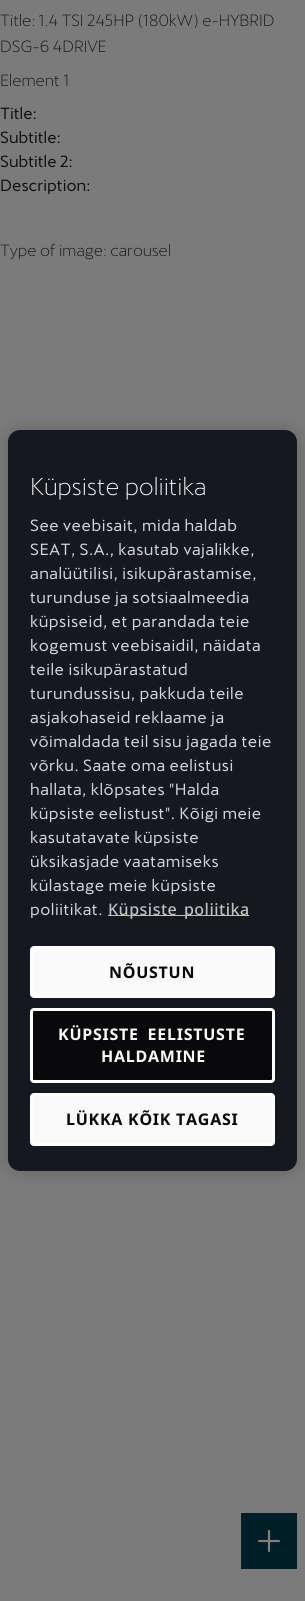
import math
import cairocffi as cairo

surface = cairo.ImageSurface(cairo.FORMAT_RGB24, 305, 1601)
ctx = cairo.Context(surface)
options = cairo.FontOptions()
options.set_hint_metrics(cairo.HINT_METRICS_OFF)
options.set_hint_style(cairo.HINT_STYLE_NONE)
ctx.set_font_options(options)
ctx.set_miter_limit(4)


def rgb(r, g, b):
    ctx.set_source_rgb(r / 255, g / 255, b / 255)


def face(family, size, italic, bold):
    ctx.select_font_face(family, cairo.FONT_SLANT_ITALIC if italic else cairo.FONT_SLANT_NORMAL, cairo.FONT_WEIGHT_BOLD if bold else cairo.FONT_WEIGHT_NORMAL)
    ctx.set_font_size(size)


def label(x, y, s):
    ctx.move_to(x, y)
    ctx.show_text(s)


def tracked(x, y, s, letter, word):
    ctx.move_to(x, y)
    for ch in s:
        ctx.show_text(ch)
        ctx.rel_move_to(letter + word * (ch == ' '), 0)


def rect(x, y, w, h):
    ctx.rectangle(x, y, w, h)
    ctx.fill()


def rrect(x, y, w, h, r):
    ctx.new_sub_path()
    for i, (u, v) in enumerate([(x + w - r, y + h - r), (x + r, y + h - r), (x + r, y + r), (x + w - r, y + r)]):
        ctx.arc(u, v, r, i * math.pi / 2, (i + 1) * math.pi / 2)
    ctx.close_path()


def soft_shadow(x, y, w, h, r, blur, alpha):
    ctx.push_group_with_content(cairo.CONTENT_ALPHA)
    ctx.set_operator(cairo.OPERATOR_SOURCE)
    for i in range(15, -16, -2):
        e = blur * i / 6
        if min(w, h) + 2 * e > 0:
            ctx.set_source_rgba(0, 0, 0, alpha * math.erfc((i - 1) / 8.5) / 2)
            rrect(x - e, y - e, w + 2 * e, h + 2 * e, max(0, min(r + e + blur * .6, min(w, h) / 2 + e)))
            ctx.fill()
    ctx.mask(ctx.pop_group())


def image(path, x, y, w, h):
    ctx.save()
    ctx.set_source_surface(cairo.ImageSurface.create_from_png(path), x, y)
    ctx.rectangle(x, y, w, h)
    ctx.fill()
    ctx.restore()


rgb(123, 123, 123)
ctx.paint()
face('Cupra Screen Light', 16, 0, 0)
rgb(18, 17, 17)
label(0, 26, 'Title: 1.4 TSI 245HP (180kW) e-HYBRID')
label(0, 52, 'DSG-6 4DRIVE')
label(0, 86, 'Element 1')
face('Cupra Screen', 16, 0, 0)
label(0, 119, 'Title:')
label(0, 143, 'Subtitle:')
label(0, 167, 'Subtitle 2:')
label(0, 191, 'Description:')
face('Cupra Screen Light', 16, 0, 0)
label(0, 256, 'Type of image: carousel')
rgb(0, 0, 0)
soft_shadow(8, 430, 289, 741, 12, 9, 0.2)
rgb(21, 24, 30)
rrect(8, 430, 289, 741, 12)
ctx.fill()
face('Cupra Screen Light', 24, 0, 0)
rgb(250, 250, 250)
label(30, 495, 'Küpsiste poliitika')
face('Cupra Screen', 16, 0, 0)
rgb(211, 214, 217)
tracked(30, 531, 'See veebisait, mida haldab', 0.5, 0)
tracked(30, 555, 'SEAT, S.A., kasutab vajalikke,', 0.5, 0)
tracked(30, 579, 'analüütilisi, isikupärastamise,', 0.5, 0)
tracked(30, 603, 'turunduse ja sotsiaalmeedia', 0.5, 0)
tracked(30, 627, 'küpsiseid, et parandada teie', 0.5, 0)
tracked(30, 651, 'kogemust veebisaidil, näidata', 0.5, 0)
tracked(30, 675, 'teile isikupärastatud', 0.5, 0)
tracked(30, 699, 'turundussisu, pakkuda teile', 0.5, 0)
tracked(30, 723, 'asjakohaseid reklaame ja', 0.5, 0)
tracked(30, 747, 'võimaldada teil sisu jagada teie', 0.5, 0)
tracked(30, 771, 'võrku. Saate oma eelistusi', 0.5, 0)
tracked(30, 795, 'hallata, klõpsates "Halda', 0.5, 0)
tracked(30, 819, 'küpsiste eelistust". Kõigi meie', 0.5, 0)
tracked(30, 843, 'kasutatavate küpsiste', 0.5, 0)
tracked(30, 867, 'üksikasjade vaatamiseks', 0.5, 0)
tracked(30, 891, 'külastage meie küpsiste', 0.5, 0)
tracked(30, 915, 'poliitikat.', 0.5, 0)
rgb(192, 192, 192)
rect(108, 915, 141, 1)
face('Noto Sans Medium', 16, 0, 0)
tracked(108, 915, 'Küpsiste poliitika', 0.5, 2)
rgb(250, 250, 250)
rrect(31.5, 947.5, 242, 49, 2.5)
ctx.fill_preserve()
rgb(255, 255, 255)
ctx.set_line_width(3)
ctx.stroke()
face('Noto Sans', 16, 0, 1)
rgb(9, 9, 11)
tracked(109, 978, 'NÕUSTUN', 0.75, 0)
rrect(31.5, 1009.5, 242, 72, 2.5)
ctx.fill_preserve()
rgb(255, 255, 255)
ctx.stroke()
rgb(250, 250, 250)
tracked(58, 1040, 'KÜPSISTE EELISTUSTE', 0.75, 4)
tracked(101, 1062, 'HALDAMINE', 0.75, 0)
rrect(31.5, 1094.5, 242, 50, 2.5)
ctx.fill_preserve()
rgb(255, 255, 255)
ctx.stroke()
rgb(9, 9, 11)
tracked(66, 1125, 'LÜKKA KÕIK TAGASI', 0.75, 0)
rgb(0, 30, 37)
rect(241, 1513, 56, 56)
image('image0.png', 258, 1530, 22, 22)
surface.write_to_png('render.png')
